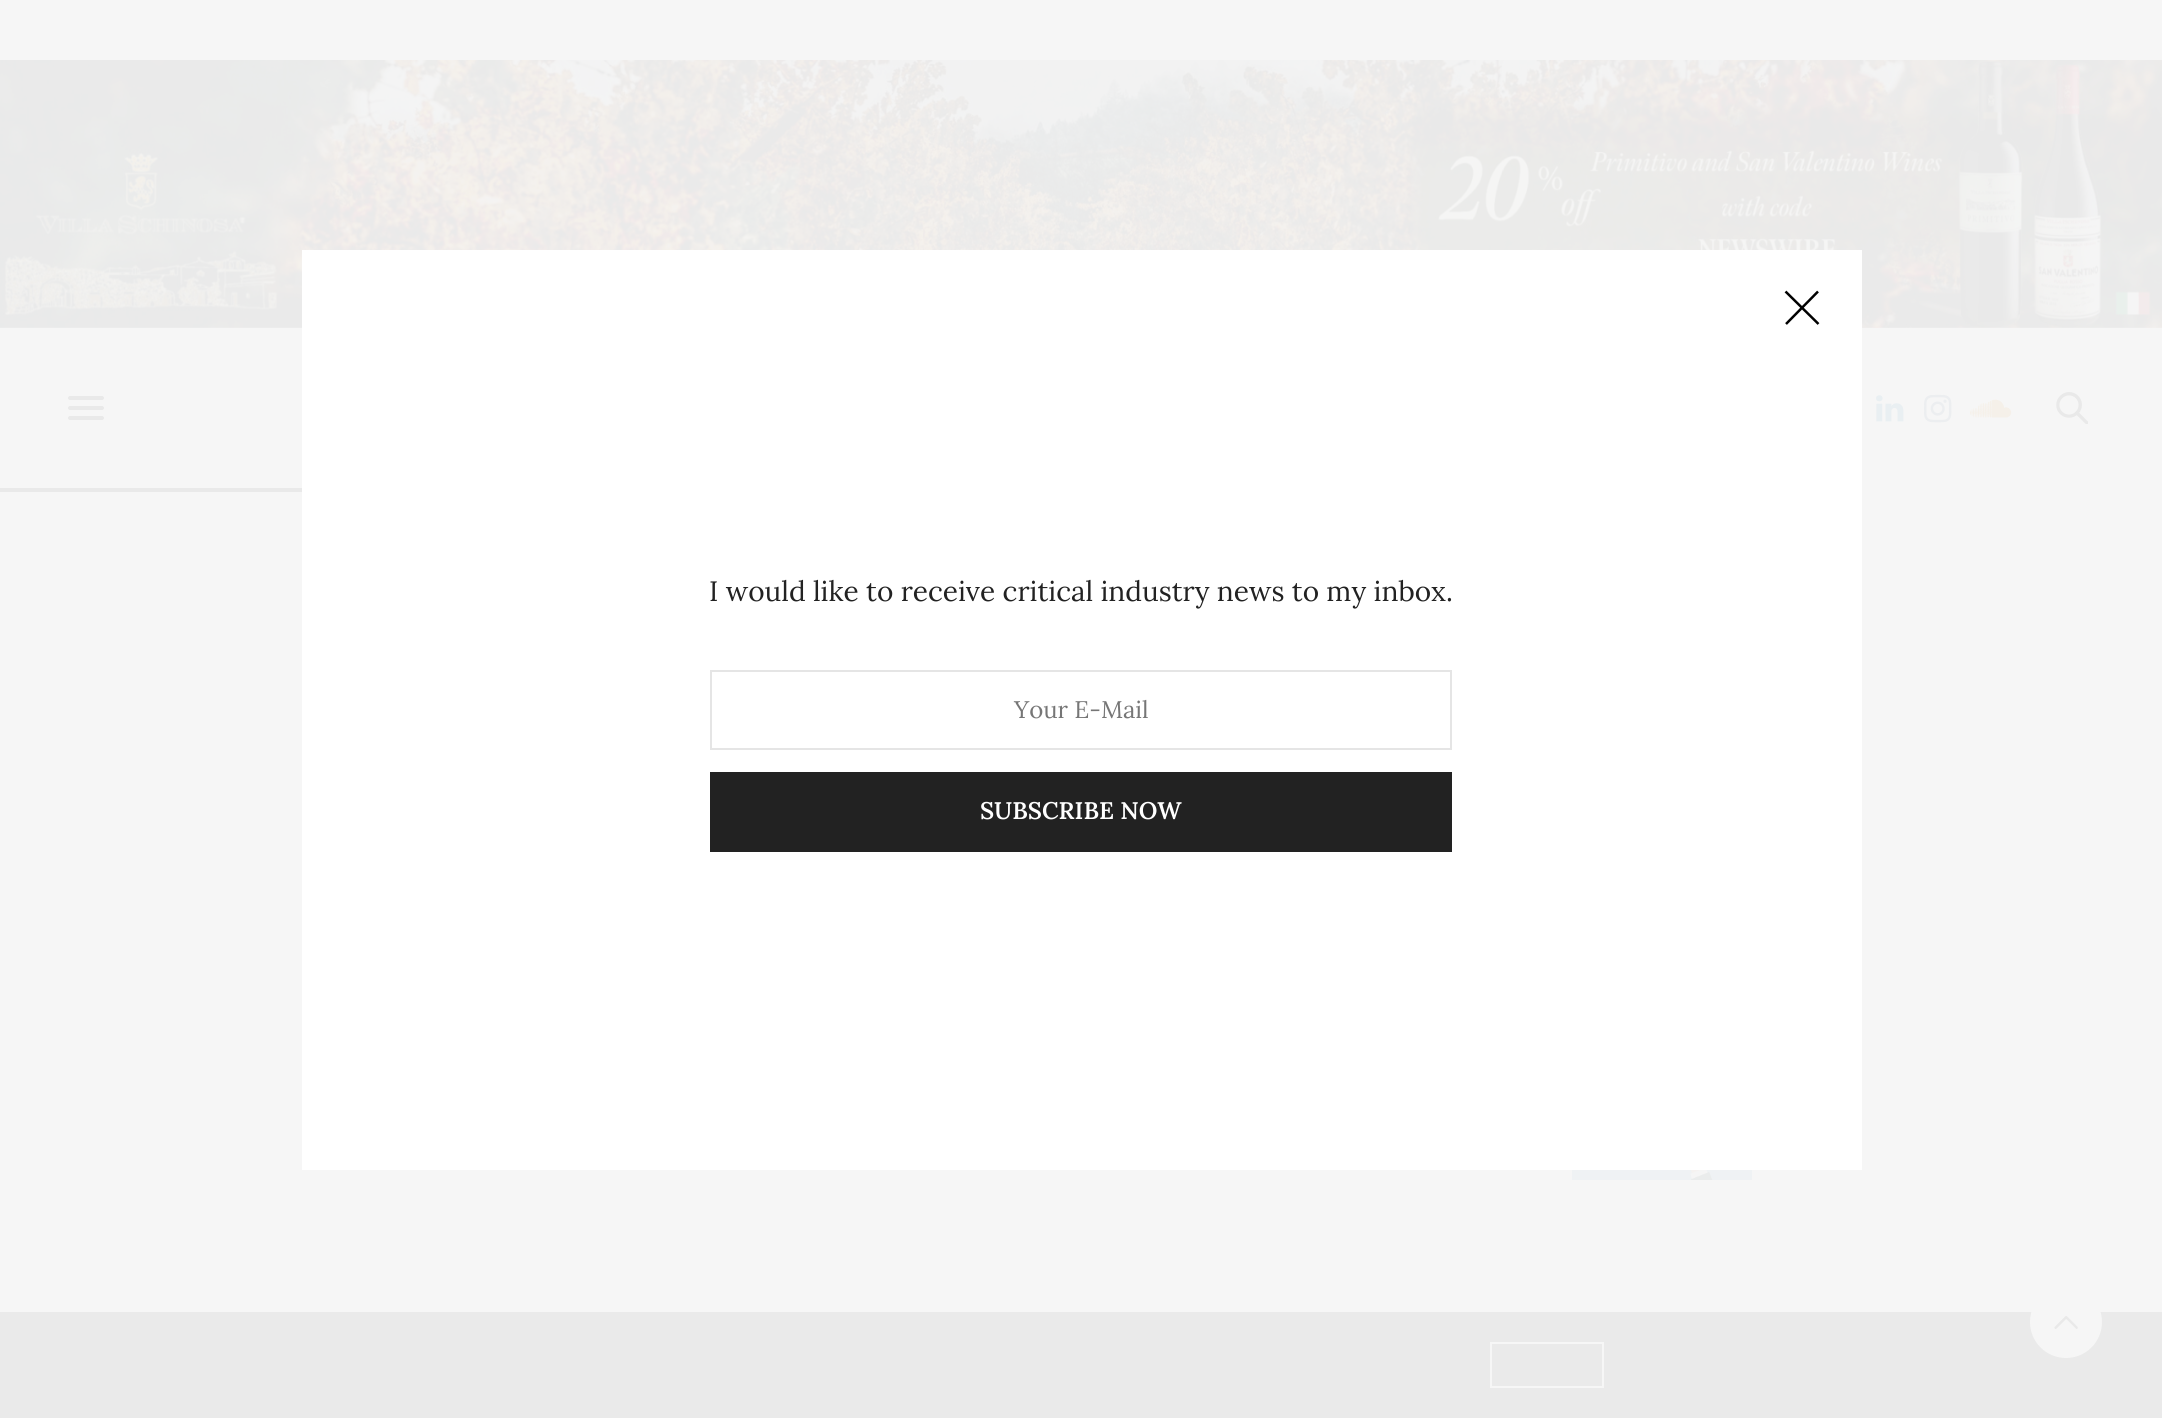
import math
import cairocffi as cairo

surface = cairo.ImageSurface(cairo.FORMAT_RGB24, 2162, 1418)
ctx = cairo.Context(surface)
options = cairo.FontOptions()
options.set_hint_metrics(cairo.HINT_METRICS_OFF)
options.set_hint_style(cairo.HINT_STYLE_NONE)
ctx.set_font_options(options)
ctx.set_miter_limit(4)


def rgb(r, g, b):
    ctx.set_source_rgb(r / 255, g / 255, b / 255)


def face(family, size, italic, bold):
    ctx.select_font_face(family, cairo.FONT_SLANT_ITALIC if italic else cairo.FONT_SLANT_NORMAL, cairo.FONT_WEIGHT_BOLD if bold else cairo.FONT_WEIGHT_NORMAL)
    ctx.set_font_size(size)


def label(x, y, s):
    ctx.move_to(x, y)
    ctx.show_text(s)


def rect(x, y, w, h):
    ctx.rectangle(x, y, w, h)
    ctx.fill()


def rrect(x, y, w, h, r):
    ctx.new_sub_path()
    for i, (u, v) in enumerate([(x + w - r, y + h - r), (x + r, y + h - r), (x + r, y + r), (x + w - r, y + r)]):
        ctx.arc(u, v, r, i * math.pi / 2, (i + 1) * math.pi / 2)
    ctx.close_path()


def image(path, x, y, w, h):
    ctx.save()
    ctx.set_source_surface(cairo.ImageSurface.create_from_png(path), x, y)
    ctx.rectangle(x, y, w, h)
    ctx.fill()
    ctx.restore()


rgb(246, 246, 246)
ctx.paint()
image('image0.png', 0, 60, 2162, 268)
rgb(233, 233, 233)
rrect(68, 396, 36, 4, 2)
ctx.fill()
rrect(68, 406, 36, 4, 2)
ctx.fill()
rrect(68, 416, 36, 4, 2)
ctx.fill()
image('image1.png', 1876, 395, 28, 27)
image('image2.png', 1924, 394, 28, 29)
image('image3.png', 1970, 399, 42, 19)
image('image4.png', 2056, 392, 32, 32)
rect(0, 488, 302, 4)
image('image5.png', 1572, 1170, 180, 10)
rgb(255, 255, 255)
rect(302, 250, 1560, 920)
ctx.new_path()
ctx.move_to(1785.5, 291.5)
ctx.line_to(1818.5, 324)
ctx.move_to(1786, 324)
ctx.line_to(1818, 291.5)
rgb(0, 0, 0)
ctx.set_line_width(2.5)
ctx.stroke()
face('Lora', 28, 0, 0)
rgb(34, 34, 34)
label(709, 601, 'I would like to receive critical industry news to my inbox.')
ctx.rectangle(711, 671, 740, 78)
rgb(229, 229, 229)
ctx.set_line_width(2)
ctx.stroke()
face('Lora', 24, 0, 0)
rgb(118, 118, 118)
label(1014, 718, 'Your E-Mail')
rgb(34, 34, 34)
rect(710, 772, 742, 80)
face('Lora SemiBold', 24, 0, 0)
rgb(255, 255, 255)
label(980, 819, 'SUBSCRIBE NOW')
rgb(234, 234, 234)
rect(0, 1312, 2162, 106)
rgb(246, 246, 246)
ctx.new_path()
ctx.arc(2066, 1322, 36, 0, 2 * math.pi)
ctx.fill()
image('image6.png', 2054, 1316, 24, 13)
ctx.rectangle(1491, 1343, 112, 44)
ctx.stroke()
surface.write_to_png('render.png')
